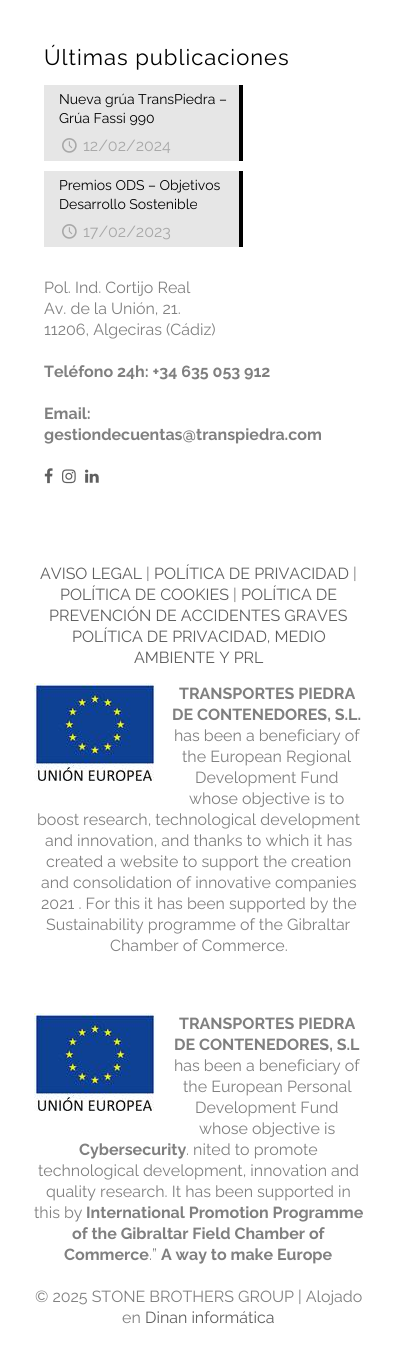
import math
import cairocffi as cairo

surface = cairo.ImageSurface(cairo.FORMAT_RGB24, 397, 1372)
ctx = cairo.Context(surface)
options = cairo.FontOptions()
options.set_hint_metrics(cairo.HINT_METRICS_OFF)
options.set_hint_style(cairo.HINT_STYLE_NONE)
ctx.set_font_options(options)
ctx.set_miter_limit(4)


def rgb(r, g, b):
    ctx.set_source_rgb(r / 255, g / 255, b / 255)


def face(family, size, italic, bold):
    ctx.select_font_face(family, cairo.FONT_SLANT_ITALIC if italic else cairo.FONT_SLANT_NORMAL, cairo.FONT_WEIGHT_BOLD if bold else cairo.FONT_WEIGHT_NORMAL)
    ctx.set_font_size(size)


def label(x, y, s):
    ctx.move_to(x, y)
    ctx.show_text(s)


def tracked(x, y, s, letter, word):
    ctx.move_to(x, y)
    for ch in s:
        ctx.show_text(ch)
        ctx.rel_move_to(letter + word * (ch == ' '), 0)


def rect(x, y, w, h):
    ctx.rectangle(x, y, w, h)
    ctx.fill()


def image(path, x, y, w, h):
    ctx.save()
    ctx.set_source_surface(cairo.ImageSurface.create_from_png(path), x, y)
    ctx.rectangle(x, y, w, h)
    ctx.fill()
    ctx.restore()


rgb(255, 255, 255)
ctx.paint()
face('Raleway', 22, 0, 0)
rgb(0, 0, 0)
tracked(44, 65, 'Últimas publicaciones', 1, 0)
rgb(230, 230, 230)
rect(44, 85, 195, 76)
face('Raleway', 14, 0, 0)
rgb(0, 0, 0)
label(59, 104, 'Nueva grúa TransPiedra –')
label(59, 123, 'Grúa Fassi 990')
rect(239, 85, 4, 76)
image('image0.png', 62, 138, 15, 15)
face('Raleway', 16, 0, 0)
rgb(168, 168, 168)
label(83, 151, '12/02/2024')
rgb(230, 230, 230)
rect(44, 171, 195, 76)
face('Raleway', 14, 0, 0)
rgb(0, 0, 0)
label(59, 190, 'Premios ODS – Objetivos')
label(59, 209, 'Desarrollo Sostenible')
rect(239, 171, 4, 76)
image('image0.png', 62, 224, 15, 15)
face('Raleway', 16, 0, 0)
rgb(168, 168, 168)
label(83, 237, '17/02/2023')
rgb(128, 128, 128)
label(44, 293, 'Pol. Ind. Cortijo Real')
label(44, 314, 'Av. de la Unión, 21.')
label(44, 335, '11206, Algeciras (Cádiz)')
face('Raleway', 16, 0, 1)
label(44, 377, 'Teléfono 24h: +34 635 053 912')
label(44, 419, 'Email:')
label(44, 440, 'gestiondecuentas@transpiedra.com')
image('image1.png', 44, 468, 9, 16)
image('image2.png', 62, 469, 14, 15)
image('image3.png', 85, 469, 14, 14)
face('Raleway', 16, 0, 0)
rgb(95, 95, 95)
label(40, 579, 'AVISO LEGAL')
rgb(128, 128, 128)
label(146, 579, '|')
rgb(95, 95, 95)
label(154, 579, 'POLÍTICA DE PRIVACIDAD')
rgb(128, 128, 128)
label(353, 579, '|')
rgb(95, 95, 95)
label(60, 600, 'POLÍTICA DE COOKIES')
rgb(128, 128, 128)
label(233, 600, '|')
rgb(95, 95, 95)
label(241, 600, 'POLÍTICA DE')
label(49, 621, 'PREVENCIÓN DE ACCIDENTES GRAVES')
label(72, 642, 'POLÍTICA DE PRIVACIDAD, MEDIO')
label(134, 663, 'AMBIENTE Y PRL')
image('image4.png', 34, 683, 122, 98)
face('Raleway', 16, 0, 1)
rgb(128, 128, 128)
label(179, 699, 'TRANSPORTES PIEDRA')
label(172, 720, 'DE CONTENEDORES, S.L.')
face('Raleway', 16, 0, 0)
label(174, 741, 'has been a beneficiary of')
label(182, 762, 'the European Regional')
label(195, 783, 'Development Fund')
label(189, 804, 'whose objective is to')
label(37, 825, 'boost research, technological development')
label(45, 846, 'and innovation, and thanks to which it has')
label(46, 867, 'created a website to support the creation')
label(41, 888, 'and consolidation of innovative companies')
label(41, 909, '2021 . For this it has been supported by the')
label(46, 930, 'Sustainability programme of the Gibraltar')
label(110, 951, 'Chamber of Commerce.')
image('image4.png', 34, 1013, 122, 98)
face('Raleway', 16, 0, 1)
label(179, 1029, 'TRANSPORTES PIEDRA')
label(174, 1050, 'DE CONTENEDORES, S.L')
face('Raleway', 16, 0, 0)
label(174, 1071, 'has been a beneficiary of')
label(183, 1092, 'the European Personal')
label(195, 1113, 'Development Fund')
label(199, 1134, 'whose objective is')
face('Raleway', 16, 0, 1)
label(79, 1155, 'Cybersecurity')
face('Raleway', 16, 0, 0)
label(186, 1155, '. nited to promote')
label(38, 1176, 'technological development, innovation and')
label(46, 1197, 'quality research. It has been supported in')
label(34, 1218, 'this by')
face('Raleway', 16, 0, 1)
label(86, 1218, 'International Promotion Programme')
label(72, 1239, 'of the Gibraltar Field Chamber of')
label(64, 1260, 'Commerce')
face('Raleway', 16, 0, 0)
label(149, 1260, '.”')
face('Raleway', 16, 0, 1)
label(161, 1260, 'A way to make Europe')
face('Raleway', 16, 0, 0)
label(35, 1302, '© 2025 STONE BROTHERS GROUP | Alojado')
label(122, 1323, 'en')
rgb(95, 95, 95)
label(145, 1323, 'Dinan informática')
surface.write_to_png('render.png')
